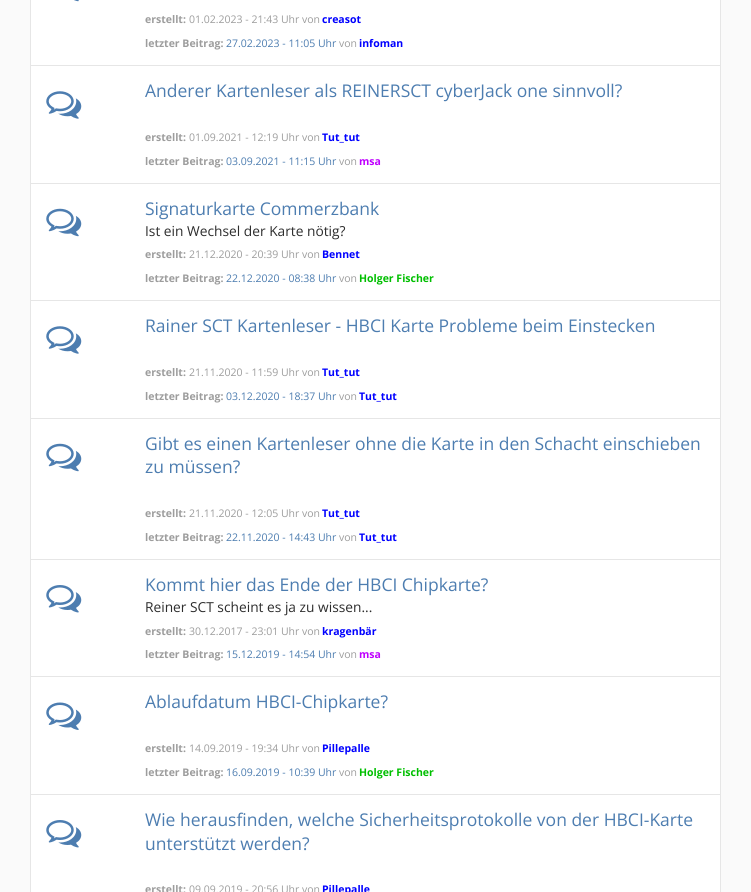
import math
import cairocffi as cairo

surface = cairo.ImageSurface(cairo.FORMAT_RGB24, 751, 892)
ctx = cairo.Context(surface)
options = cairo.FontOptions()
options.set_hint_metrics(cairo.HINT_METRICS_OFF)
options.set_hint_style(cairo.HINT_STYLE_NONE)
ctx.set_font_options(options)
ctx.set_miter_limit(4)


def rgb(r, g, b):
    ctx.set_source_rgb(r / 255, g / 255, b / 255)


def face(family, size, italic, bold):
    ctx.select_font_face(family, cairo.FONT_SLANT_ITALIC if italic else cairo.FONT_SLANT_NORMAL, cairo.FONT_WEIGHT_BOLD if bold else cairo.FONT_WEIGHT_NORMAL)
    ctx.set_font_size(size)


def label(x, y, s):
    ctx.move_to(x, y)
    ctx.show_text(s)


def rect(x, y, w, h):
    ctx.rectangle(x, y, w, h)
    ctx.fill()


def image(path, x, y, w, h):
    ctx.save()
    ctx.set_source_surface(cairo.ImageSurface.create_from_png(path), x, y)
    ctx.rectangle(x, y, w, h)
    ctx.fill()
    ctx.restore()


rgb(250, 250, 250)
ctx.paint()
rgb(255, 255, 255)
ctx.rectangle(30.5, -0.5, 690, 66)
ctx.fill_preserve()
rgb(230, 230, 230)
ctx.set_line_width(1)
ctx.stroke()
image('image0.png', 74, 0, 5, 2)
face('Open Sans', 10.5, 0, 1)
rgb(157, 157, 157)
label(145, 23, 'erstellt:')
face('Open Sans', 10.5, 0, 0)
label(189, 23, '01.02.2023 - 21:43 Uhr von')
face('Open Sans', 10.5, 0, 1)
rgb(0, 0, 255)
label(322, 23, 'creasot')
rgb(157, 157, 157)
label(145, 47, 'letzter Beitrag:')
face('Open Sans', 10.5, 0, 0)
rgb(77, 125, 176)
label(226, 47, '27.02.2023 - 11:05 Uhr')
rgb(157, 157, 157)
label(339, 47, 'von')
face('Open Sans', 10.5, 0, 1)
rgb(0, 0, 255)
label(359, 47, 'infoman')
rgb(255, 255, 255)
ctx.rectangle(30.5, 65.5, 690, 118)
ctx.fill_preserve()
rgb(230, 230, 230)
ctx.stroke()
image('image1.png', 46, 91, 36, 28)
face('Open Sans', 17.5, 0, 0)
rgb(77, 125, 176)
label(145, 97, 'Anderer Kartenleser als REINERSCT cyberJack one sinnvoll?')
face('Open Sans', 10.5, 0, 1)
rgb(157, 157, 157)
label(145, 141, 'erstellt:')
face('Open Sans', 10.5, 0, 0)
label(189, 141, '01.09.2021 - 12:19 Uhr von')
face('Open Sans', 10.5, 0, 1)
rgb(0, 0, 255)
label(322, 141, 'Tut_tut')
rgb(157, 157, 157)
label(145, 165, 'letzter Beitrag:')
face('Open Sans', 10.5, 0, 0)
rgb(77, 125, 176)
label(226, 165, '03.09.2021 - 11:15 Uhr')
rgb(157, 157, 157)
label(339, 165, 'von')
face('Open Sans', 10.5, 0, 1)
rgb(191, 0, 255)
label(359, 165, 'msa')
rgb(255, 255, 255)
ctx.rectangle(30.5, 183.5, 690, 117)
ctx.fill_preserve()
rgb(230, 230, 230)
ctx.stroke()
image('image2.png', 46, 208, 36, 29)
face('Open Sans', 17.5, 0, 0)
rgb(77, 125, 176)
label(145, 215, 'Signaturkarte Commerzbank')
face('Open Sans', 13.75, 0, 0)
rgb(45, 45, 45)
label(145, 236, 'Ist ein Wechsel der Karte nötig?')
face('Open Sans', 10.5, 0, 1)
rgb(157, 157, 157)
label(145, 258, 'erstellt:')
face('Open Sans', 10.5, 0, 0)
label(189, 258, '21.12.2020 - 20:39 Uhr von')
face('Open Sans', 10.5, 0, 1)
rgb(0, 0, 255)
label(322, 258, 'Bennet')
rgb(157, 157, 157)
label(145, 282, 'letzter Beitrag:')
face('Open Sans', 10.5, 0, 0)
rgb(77, 125, 176)
label(226, 282, '22.12.2020 - 08:38 Uhr')
rgb(157, 157, 157)
label(339, 282, 'von')
face('Open Sans', 10.5, 0, 1)
rgb(0, 191, 0)
label(359, 282, 'Holger Fischer')
rgb(255, 255, 255)
ctx.rectangle(30.5, 300.5, 690, 118)
ctx.fill_preserve()
rgb(230, 230, 230)
ctx.stroke()
image('image1.png', 46, 326, 36, 28)
face('Open Sans', 17.5, 0, 0)
rgb(77, 125, 176)
label(145, 332, 'Rainer SCT Kartenleser - HBCI Karte Probleme beim Einstecken')
face('Open Sans', 10.5, 0, 1)
rgb(157, 157, 157)
label(145, 376, 'erstellt:')
face('Open Sans', 10.5, 0, 0)
label(189, 376, '21.11.2020 - 11:59 Uhr von')
face('Open Sans', 10.5, 0, 1)
rgb(0, 0, 255)
label(322, 376, 'Tut_tut')
rgb(157, 157, 157)
label(145, 400, 'letzter Beitrag:')
face('Open Sans', 10.5, 0, 0)
rgb(77, 125, 176)
label(226, 400, '03.12.2020 - 18:37 Uhr')
rgb(157, 157, 157)
label(339, 400, 'von')
face('Open Sans', 10.5, 0, 1)
rgb(0, 0, 255)
label(359, 400, 'Tut_tut')
rgb(255, 255, 255)
ctx.rectangle(30.5, 418.5, 690, 141)
ctx.fill_preserve()
rgb(230, 230, 230)
ctx.stroke()
image('image2.png', 46, 443, 36, 29)
face('Open Sans', 17.5, 0, 0)
rgb(77, 125, 176)
label(145, 450, 'Gibt es einen Kartenleser ohne die Karte in den Schacht einschieben')
label(145, 473, 'zu müssen?')
face('Open Sans', 10.5, 0, 1)
rgb(157, 157, 157)
label(145, 517, 'erstellt:')
face('Open Sans', 10.5, 0, 0)
label(189, 517, '21.11.2020 - 12:05 Uhr von')
face('Open Sans', 10.5, 0, 1)
rgb(0, 0, 255)
label(322, 517, 'Tut_tut')
rgb(157, 157, 157)
label(145, 541, 'letzter Beitrag:')
face('Open Sans', 10.5, 0, 0)
rgb(77, 125, 176)
label(226, 541, '22.11.2020 - 14:43 Uhr')
rgb(157, 157, 157)
label(339, 541, 'von')
face('Open Sans', 10.5, 0, 1)
rgb(0, 0, 255)
label(359, 541, 'Tut_tut')
rgb(255, 255, 255)
rect(31, 560, 689, 116)
ctx.rectangle(30.5, 559.5, 690, 118)
rgb(230, 230, 230)
ctx.stroke()
image('image3.png', 46, 585, 36, 28)
face('Open Sans', 17.5, 0, 0)
rgb(77, 125, 176)
label(145, 591, 'Kommt hier das Ende der HBCI Chipkarte?')
face('Open Sans', 13.75, 0, 0)
rgb(45, 45, 45)
label(145, 612, 'Reiner SCT scheint es ja zu wissen...')
face('Open Sans', 10.5, 0, 1)
rgb(157, 157, 157)
label(145, 635, 'erstellt:')
face('Open Sans', 10.5, 0, 0)
label(189, 635, '30.12.2017 - 23:01 Uhr von')
face('Open Sans', 10.5, 0, 1)
rgb(0, 0, 255)
label(322, 635, 'kragenbär')
rgb(157, 157, 157)
label(145, 658, 'letzter Beitrag:')
face('Open Sans', 10.5, 0, 0)
rgb(77, 125, 176)
label(226, 658, '15.12.2019 - 14:54 Uhr')
rgb(157, 157, 157)
label(339, 658, 'von')
face('Open Sans', 10.5, 0, 1)
rgb(191, 0, 255)
label(359, 658, 'msa')
rgb(255, 255, 255)
ctx.rectangle(30.5, 676.5, 690, 118)
ctx.fill_preserve()
rgb(230, 230, 230)
ctx.stroke()
image('image4.png', 46, 702, 36, 28)
face('Open Sans', 17.5, 0, 0)
rgb(77, 125, 176)
label(145, 708, 'Ablaufdatum HBCI-Chipkarte?')
face('Open Sans', 10.5, 0, 1)
rgb(157, 157, 157)
label(145, 752, 'erstellt:')
face('Open Sans', 10.5, 0, 0)
label(189, 752, '14.09.2019 - 19:34 Uhr von')
face('Open Sans', 10.5, 0, 1)
rgb(0, 0, 255)
label(322, 752, 'Pillepalle')
rgb(157, 157, 157)
label(145, 776, 'letzter Beitrag:')
face('Open Sans', 10.5, 0, 0)
rgb(77, 125, 176)
label(226, 776, '16.09.2019 - 10:39 Uhr')
rgb(157, 157, 157)
label(339, 776, 'von')
face('Open Sans', 10.5, 0, 1)
rgb(0, 191, 0)
label(359, 776, 'Holger Fischer')
rgb(255, 255, 255)
ctx.rectangle(30.5, 794.5, 690, 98)
ctx.fill_preserve()
rgb(230, 230, 230)
ctx.stroke()
image('image3.png', 46, 820, 36, 28)
face('Open Sans', 17.5, 0, 0)
rgb(77, 125, 176)
label(145, 826, 'Wie herausfinden, welche Sicherheitsprotokolle von der HBCI-Karte')
label(145, 850, 'unterstützt werden?')
face('Open Sans', 10.5, 0, 1)
rgb(157, 157, 157)
label(145, 893, 'erstellt:')
face('Open Sans', 10.5, 0, 0)
label(189, 893, '09.09.2019 - 20:56 Uhr von')
face('Open Sans', 10.5, 0, 1)
rgb(0, 0, 255)
label(322, 893, 'Pillepalle')
surface.write_to_png('render.png')
